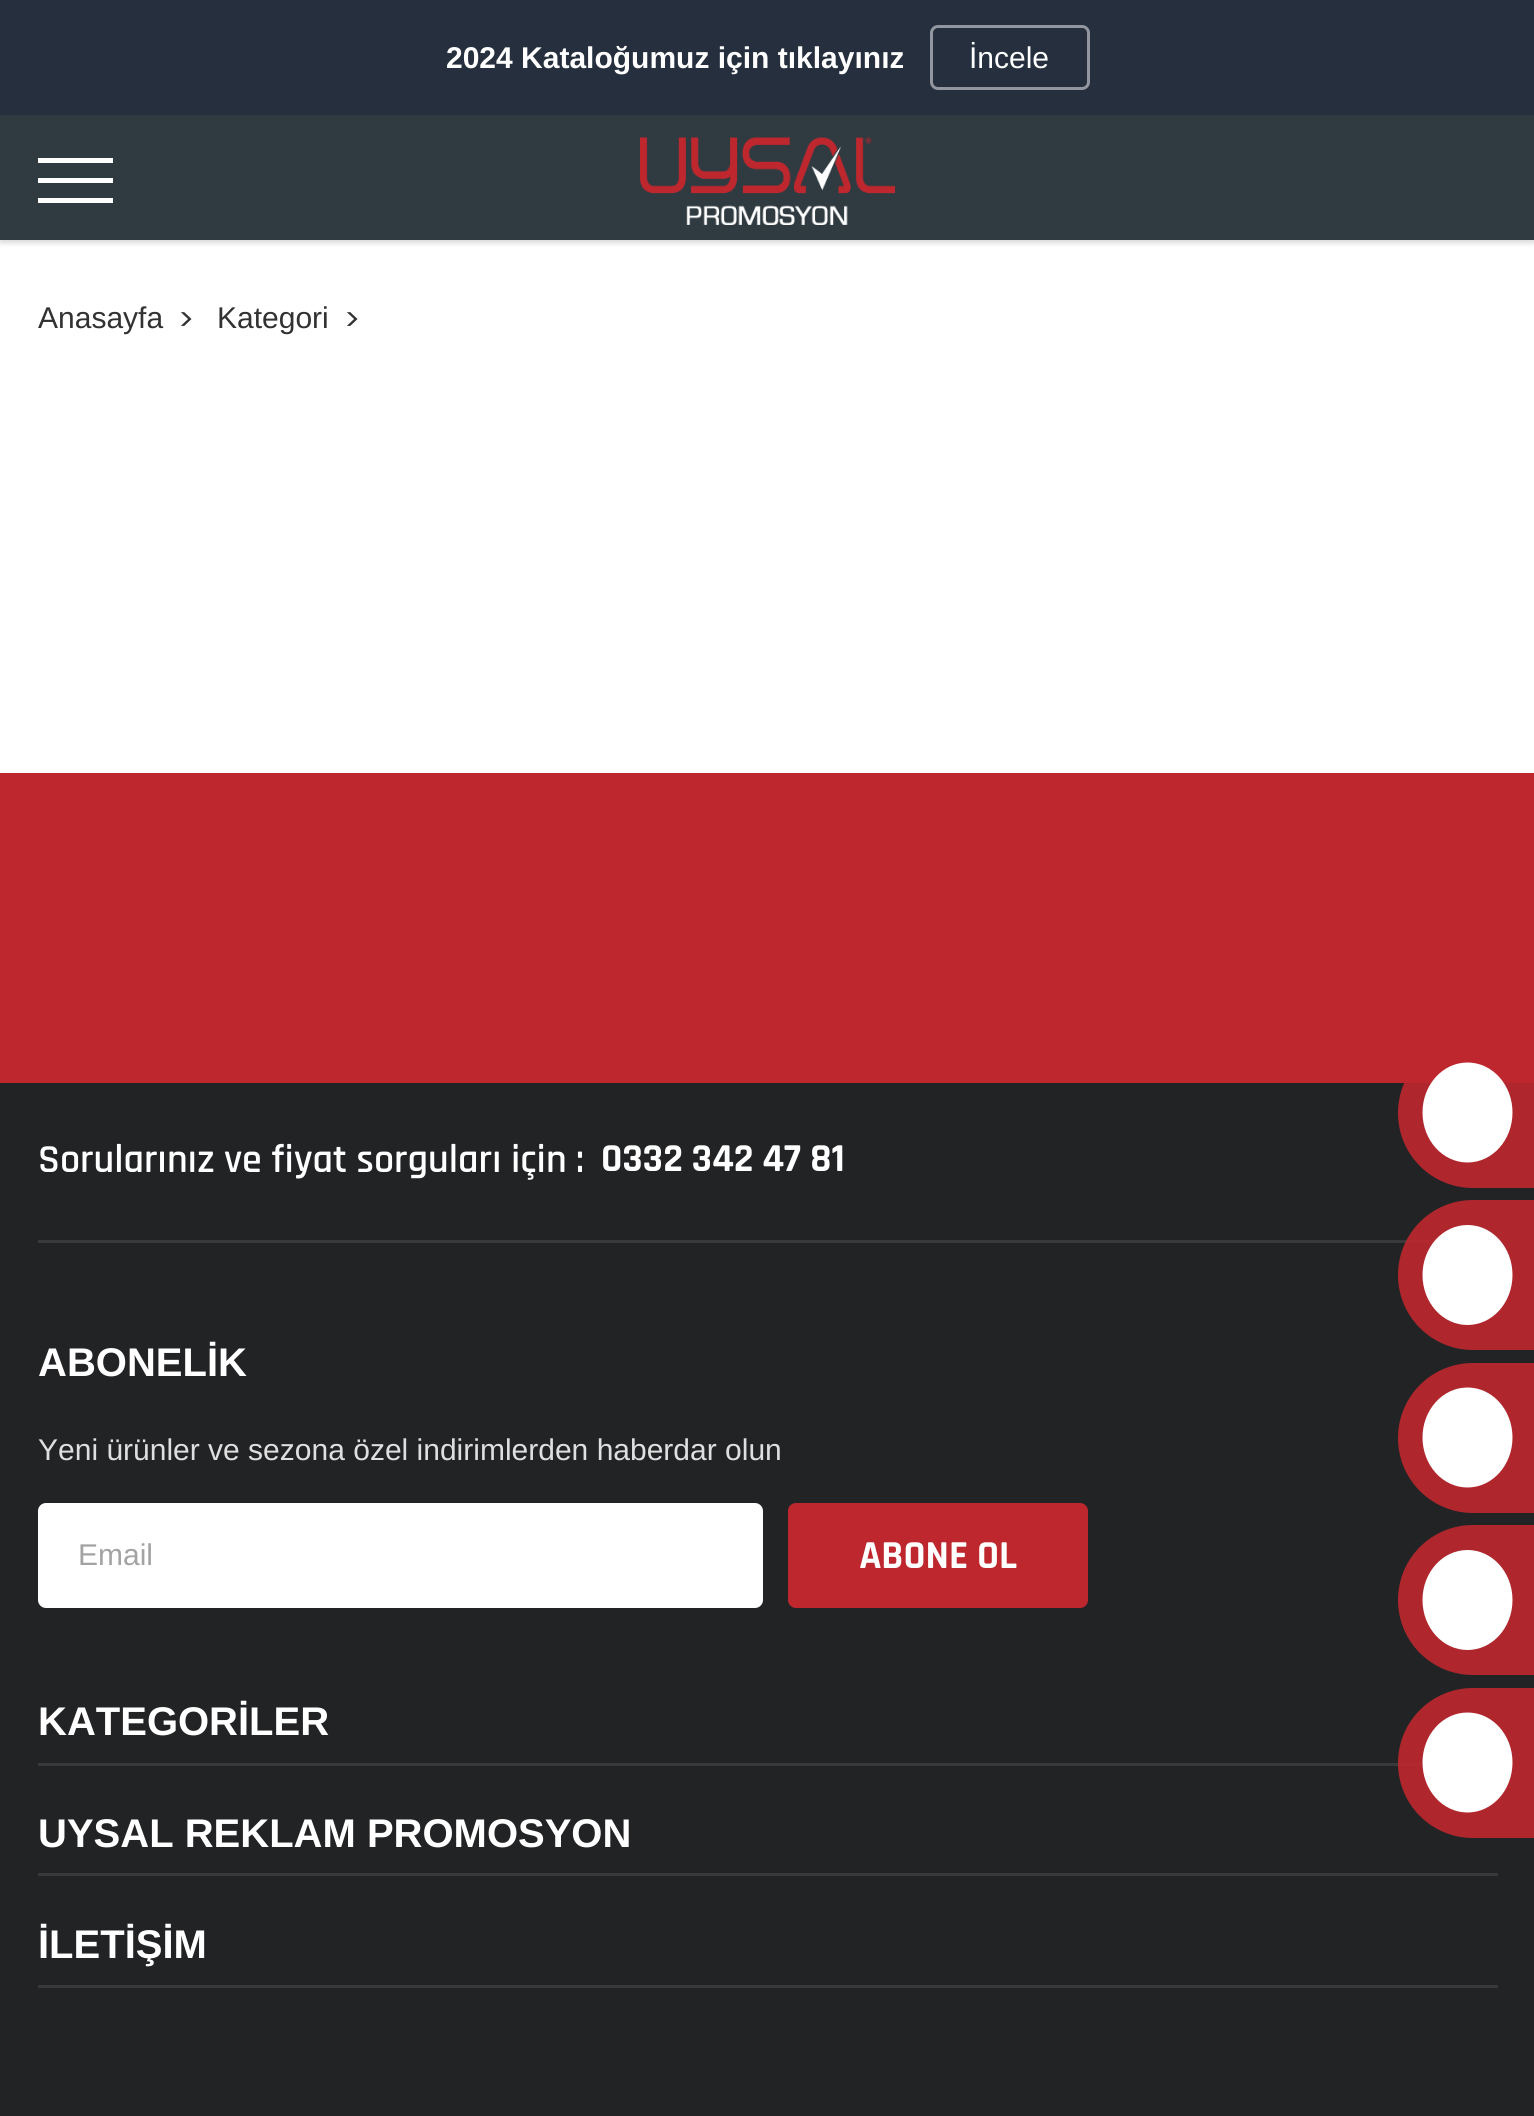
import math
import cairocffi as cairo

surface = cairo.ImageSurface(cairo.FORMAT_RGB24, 1534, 2116)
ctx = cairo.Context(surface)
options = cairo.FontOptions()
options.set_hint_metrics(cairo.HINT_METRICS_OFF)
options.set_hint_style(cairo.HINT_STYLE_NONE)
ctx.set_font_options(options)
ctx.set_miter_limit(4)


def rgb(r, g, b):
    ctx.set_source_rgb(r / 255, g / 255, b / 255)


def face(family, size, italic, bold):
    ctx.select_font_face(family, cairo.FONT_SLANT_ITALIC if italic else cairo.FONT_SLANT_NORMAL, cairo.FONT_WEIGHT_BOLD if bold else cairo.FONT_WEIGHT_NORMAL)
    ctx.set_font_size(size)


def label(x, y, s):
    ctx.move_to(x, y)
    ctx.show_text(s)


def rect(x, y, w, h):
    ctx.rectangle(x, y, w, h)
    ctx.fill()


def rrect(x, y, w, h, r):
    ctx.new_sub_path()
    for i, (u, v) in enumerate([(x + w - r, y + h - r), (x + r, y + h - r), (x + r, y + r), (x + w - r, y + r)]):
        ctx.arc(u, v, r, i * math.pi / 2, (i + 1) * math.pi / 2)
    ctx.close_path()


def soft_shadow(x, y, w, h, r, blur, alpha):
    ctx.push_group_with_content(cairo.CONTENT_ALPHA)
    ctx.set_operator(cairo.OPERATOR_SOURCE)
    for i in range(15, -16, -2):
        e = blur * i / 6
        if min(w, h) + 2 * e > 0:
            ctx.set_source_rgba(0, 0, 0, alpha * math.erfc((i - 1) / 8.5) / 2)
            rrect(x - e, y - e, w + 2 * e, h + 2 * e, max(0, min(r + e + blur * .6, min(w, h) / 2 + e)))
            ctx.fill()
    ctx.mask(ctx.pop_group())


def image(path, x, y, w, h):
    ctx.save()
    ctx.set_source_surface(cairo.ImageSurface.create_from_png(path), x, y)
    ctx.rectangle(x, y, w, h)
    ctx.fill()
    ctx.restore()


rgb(255, 255, 255)
ctx.paint()
rgb(37, 47, 62)
rect(0, 0, 1534, 115)
face('Arimo', 30, 0, 1)
rgb(255, 255, 255)
label(446, 68, '2024 Kataloğumuz için tıklayınız')
rrect(931.5, 26.5, 157, 62, 6.5)
rgb(146, 151, 159)
ctx.set_line_width(3)
ctx.stroke()
face('Arimo', 30, 0, 0)
rgb(255, 255, 255)
label(969, 68, 'İncele')
rgb(0, 0, 0)
soft_shadow(0, 118, 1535, 125, 0, 2.5, 0.15)
rgb(48, 59, 65)
rect(0, 115, 1534, 125)
rgb(255, 255, 255)
rect(38, 178, 75, 5)
rect(38, 158, 75, 5)
rect(38, 198, 75, 5)
image('image0.png', 640, 137, 255, 88)
rgb(50, 50, 50)
label(38, 328, 'Anasayfa')
face('Poppins', 30, 0, 0)
label(178, 330, '>')
face('Arimo', 30, 0, 0)
label(217, 328, 'Kategori')
face('Poppins', 30, 0, 0)
label(344, 330, '>')
rgb(191, 39, 46)
rect(0, 773, 1534, 310)
rgb(34, 35, 37)
rect(0, 1083, 1534, 1033)
rgb(57, 57, 59)
rect(38, 1240, 1398, 3)
face('Rajdhani SemiBold', 40, 0, 0)
rgb(255, 255, 255)
label(38, 1172, 'Sorularınız ve fiyat sorguları için :')
face('Rajdhani', 40, 0, 1)
label(601, 1171, '0332 342 47 81')
face('Arimo', 40, 0, 1)
label(38, 1376, 'ABONELİK')
face('Arimo', 30, 0, 0)
rgb(223, 223, 223)
label(38, 1460, 'Yeni ürünler ve sezona özel indirimlerden haberdar olun')
rgb(255, 255, 255)
rrect(39.5, 1504.5, 722, 102, 6.5)
ctx.fill_preserve()
ctx.stroke()
rgb(163, 163, 163)
label(78, 1565, 'Email')
rgb(191, 39, 46)
rrect(789.5, 1504.5, 297, 102, 6.5)
ctx.fill_preserve()
ctx.stroke()
face('Rajdhani', 40, 0, 1)
rgb(255, 255, 255)
label(859, 1568, 'ABONE OL')
rgb(57, 57, 59)
rect(38, 1763, 1385, 3)
face('Arimo', 40, 0, 1)
rgb(255, 255, 255)
label(38, 1735, 'KATEGORİLER')
rgb(57, 57, 59)
rect(38, 1873, 1460, 3)
rgb(255, 255, 255)
label(38, 1847, 'UYSAL REKLAM PROMOSYON')
rgb(57, 57, 59)
rect(38, 1985, 1460, 3)
rgb(255, 255, 255)
label(38, 1958, 'İLETİŞİM')
ctx.set_source_rgba(0.749, 0.153, 0.18, 0.9)
ctx.new_path()
ctx.move_to(1473, 1038)
ctx.line_to(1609, 1038)
ctx.line_to(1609, 1188)
ctx.line_to(1473, 1188)
ctx.curve_to(1431.5, 1188, 1398, 1154.5, 1398, 1113)
ctx.curve_to(1398, 1071.5, 1431.5, 1038, 1473, 1038)
ctx.close_path()
ctx.fill()
rgb(255, 255, 255)
ctx.new_path()
ctx.move_to(1467.5, 1062.5)
ctx.curve_to(1492.5, 1062.5, 1512.5, 1085, 1512.5, 1112.5)
ctx.curve_to(1512.5, 1140, 1492.5, 1162.5, 1467.5, 1162.5)
ctx.curve_to(1442.5, 1162.5, 1422.5, 1140, 1422.5, 1112.5)
ctx.curve_to(1422.5, 1085, 1442.5, 1062.5, 1467.5, 1062.5)
ctx.close_path()
ctx.fill()
ctx.set_source_rgba(0.749, 0.153, 0.18, 0.9)
ctx.new_path()
ctx.move_to(1473, 1200)
ctx.line_to(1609, 1200)
ctx.line_to(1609, 1350)
ctx.line_to(1473, 1350)
ctx.curve_to(1431.5, 1350, 1398, 1316.5, 1398, 1275)
ctx.curve_to(1398, 1233.5, 1431.5, 1200, 1473, 1200)
ctx.close_path()
ctx.fill()
rgb(255, 255, 255)
ctx.new_path()
ctx.move_to(1467.5, 1225)
ctx.curve_to(1492.5, 1225, 1512.5, 1247.5, 1512.5, 1275)
ctx.curve_to(1512.5, 1302.5, 1492.5, 1325, 1467.5, 1325)
ctx.curve_to(1442.5, 1325, 1422.5, 1302.5, 1422.5, 1275)
ctx.curve_to(1422.5, 1247.5, 1442.5, 1225, 1467.5, 1225)
ctx.close_path()
ctx.fill()
rgb(175, 39, 45)
ctx.new_path()
ctx.move_to(1473, 1363)
ctx.line_to(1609, 1363)
ctx.line_to(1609, 1513)
ctx.line_to(1473, 1513)
ctx.curve_to(1431.5, 1513, 1398, 1479.5, 1398, 1438)
ctx.curve_to(1398, 1396.5, 1431.5, 1363, 1473, 1363)
ctx.close_path()
ctx.fill()
rgb(255, 255, 255)
ctx.new_path()
ctx.move_to(1467.5, 1387.5)
ctx.curve_to(1492.5, 1387.5, 1512.5, 1410, 1512.5, 1437.5)
ctx.curve_to(1512.5, 1465, 1492.5, 1487.5, 1467.5, 1487.5)
ctx.curve_to(1442.5, 1487.5, 1422.5, 1465, 1422.5, 1437.5)
ctx.curve_to(1422.5, 1410, 1442.5, 1387.5, 1467.5, 1387.5)
ctx.close_path()
ctx.fill()
rgb(175, 39, 45)
ctx.new_path()
ctx.move_to(1473, 1525)
ctx.line_to(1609, 1525)
ctx.line_to(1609, 1675)
ctx.line_to(1473, 1675)
ctx.curve_to(1431.5, 1675, 1398, 1641.5, 1398, 1600)
ctx.curve_to(1398, 1558.5, 1431.5, 1525, 1473, 1525)
ctx.close_path()
ctx.fill()
rgb(255, 255, 255)
ctx.new_path()
ctx.move_to(1467.5, 1550)
ctx.curve_to(1492.5, 1550, 1512.5, 1572.5, 1512.5, 1600)
ctx.curve_to(1512.5, 1627.5, 1492.5, 1650, 1467.5, 1650)
ctx.curve_to(1442.5, 1650, 1422.5, 1627.5, 1422.5, 1600)
ctx.curve_to(1422.5, 1572.5, 1442.5, 1550, 1467.5, 1550)
ctx.close_path()
ctx.fill()
ctx.set_source_rgba(0.749, 0.153, 0.18, 0.9)
ctx.new_path()
ctx.move_to(1473, 1688)
ctx.line_to(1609, 1688)
ctx.line_to(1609, 1838)
ctx.line_to(1473, 1838)
ctx.curve_to(1431.5, 1838, 1398, 1804.5, 1398, 1763)
ctx.curve_to(1398, 1721.5, 1431.5, 1688, 1473, 1688)
ctx.close_path()
ctx.fill()
rgb(255, 255, 255)
ctx.new_path()
ctx.move_to(1467.5, 1712.5)
ctx.curve_to(1492.5, 1712.5, 1512.5, 1735, 1512.5, 1762.5)
ctx.curve_to(1512.5, 1790, 1492.5, 1812.5, 1467.5, 1812.5)
ctx.curve_to(1442.5, 1812.5, 1422.5, 1790, 1422.5, 1762.5)
ctx.curve_to(1422.5, 1735, 1442.5, 1712.5, 1467.5, 1712.5)
ctx.close_path()
ctx.fill()
surface.write_to_png('render.png')
